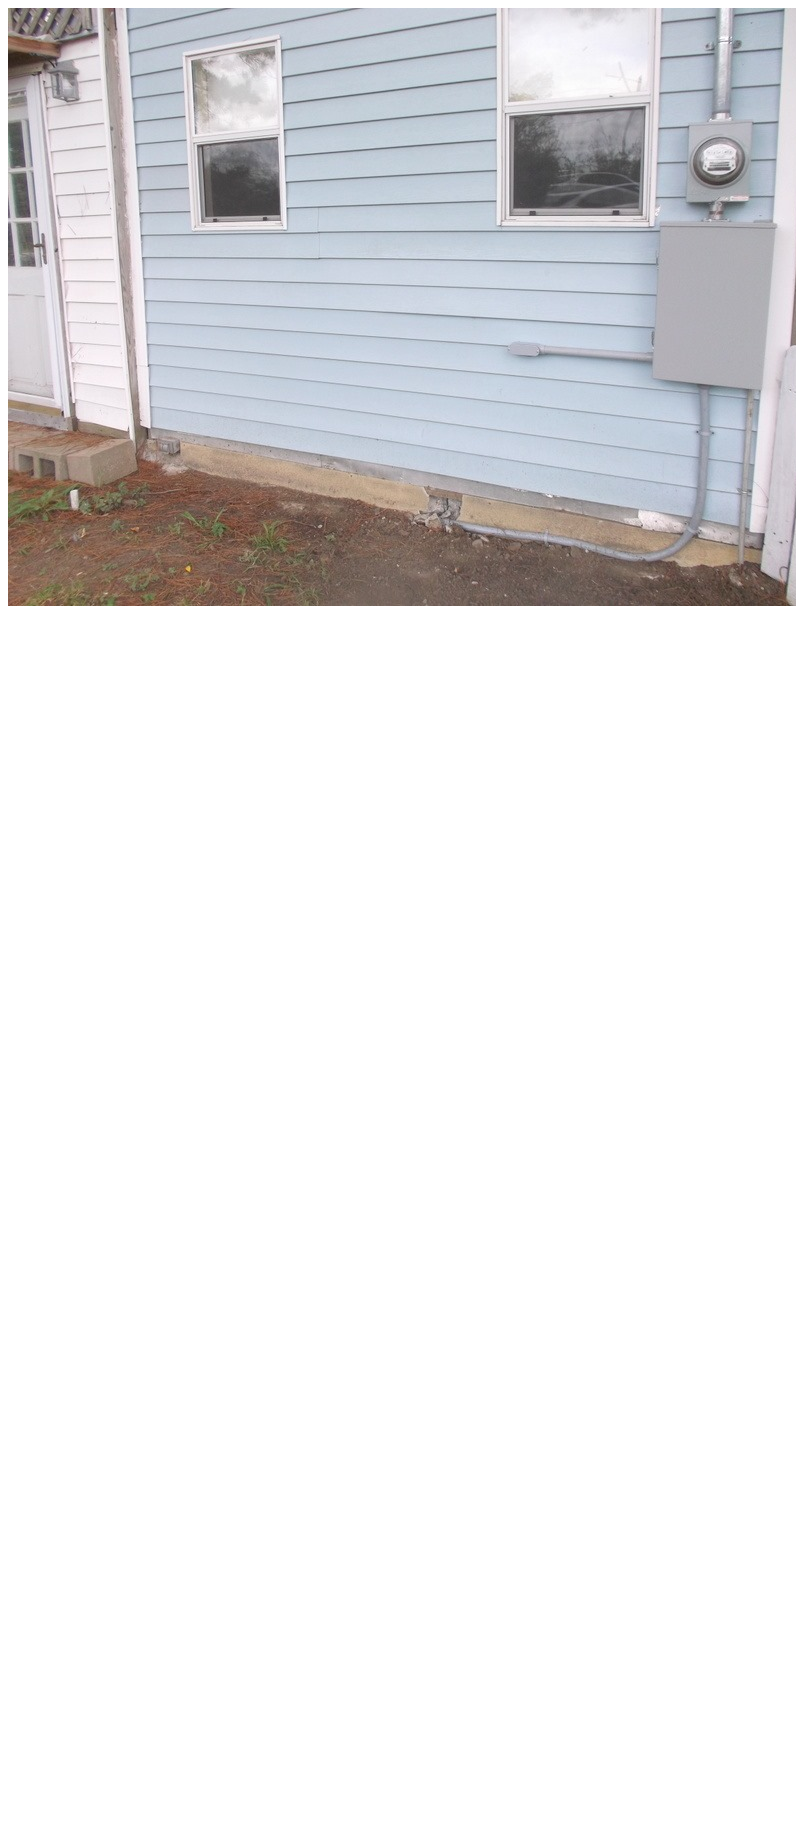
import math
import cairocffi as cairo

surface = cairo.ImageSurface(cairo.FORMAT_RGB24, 796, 1823)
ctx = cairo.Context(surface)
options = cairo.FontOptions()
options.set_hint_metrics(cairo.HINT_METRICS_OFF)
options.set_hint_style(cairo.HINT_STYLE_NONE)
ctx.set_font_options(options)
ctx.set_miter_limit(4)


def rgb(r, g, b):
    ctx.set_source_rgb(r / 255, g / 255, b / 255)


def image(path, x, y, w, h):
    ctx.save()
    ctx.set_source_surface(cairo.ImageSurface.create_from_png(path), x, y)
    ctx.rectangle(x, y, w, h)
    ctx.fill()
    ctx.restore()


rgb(255, 255, 255)
ctx.paint()
image('image0.png', 8, 8, 788, 598)
surface.write_to_png('render.png')
